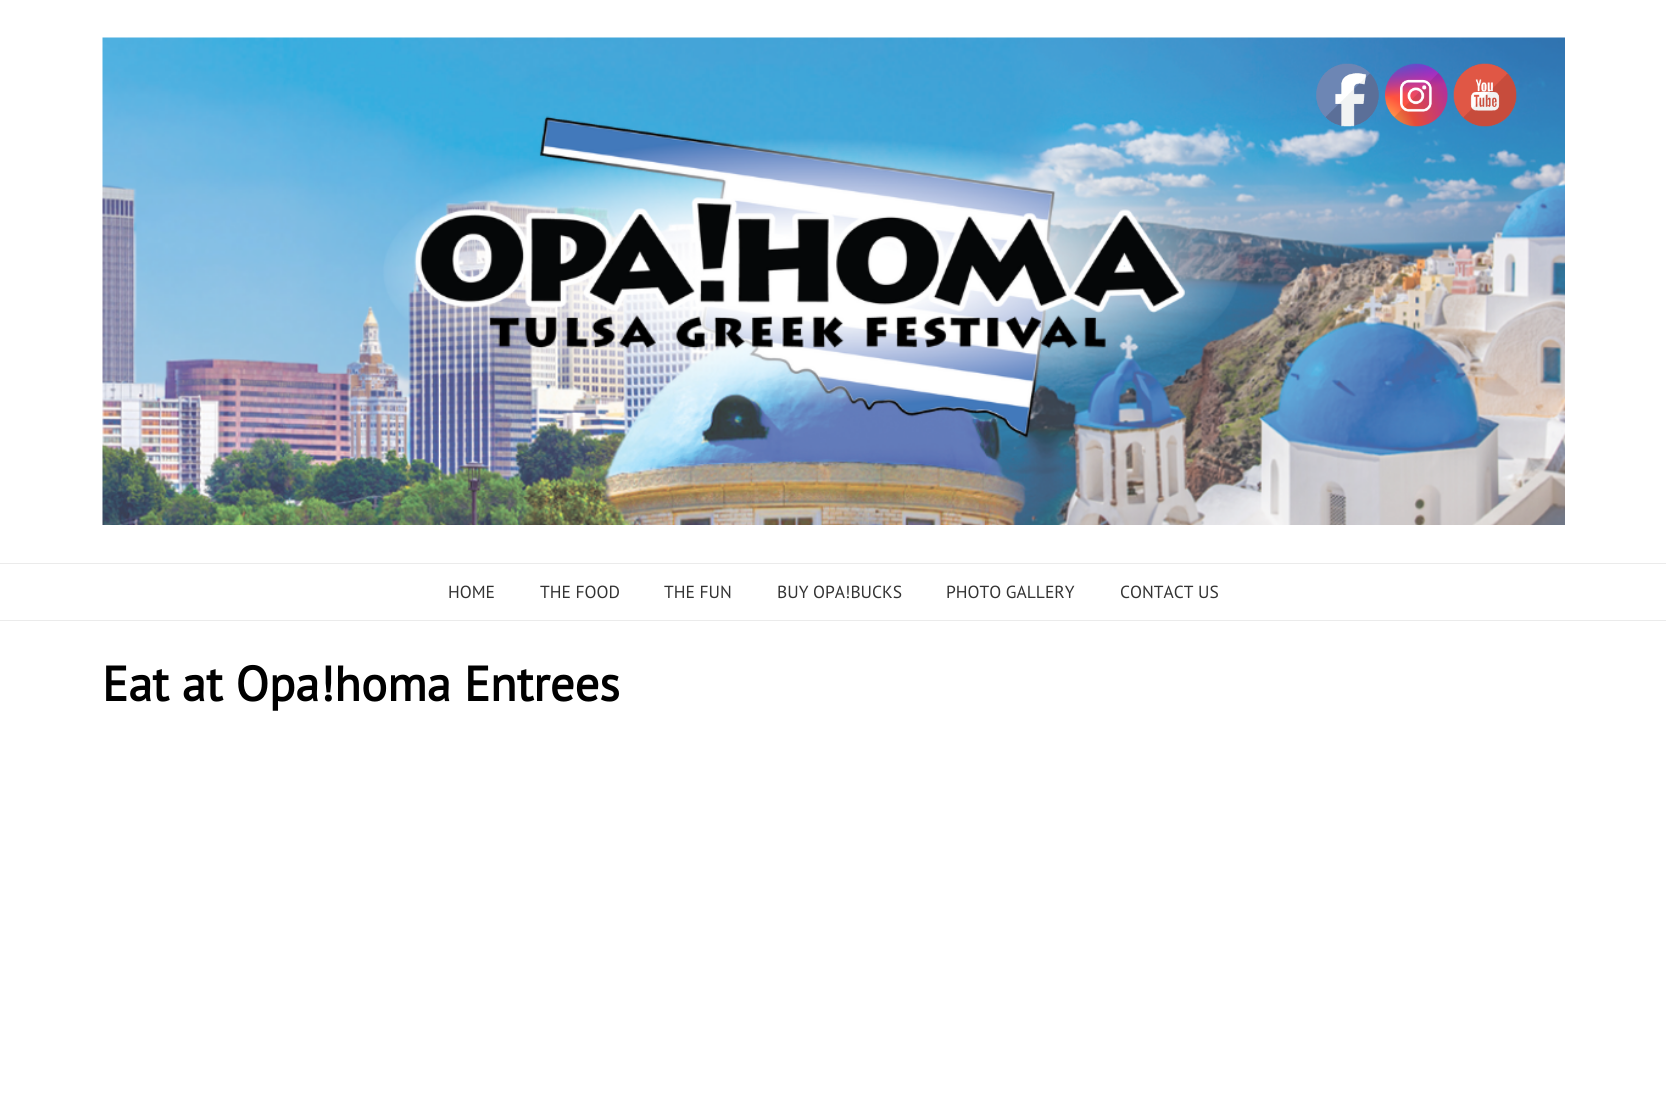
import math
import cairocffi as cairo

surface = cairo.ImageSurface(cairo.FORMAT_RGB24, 1666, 1116)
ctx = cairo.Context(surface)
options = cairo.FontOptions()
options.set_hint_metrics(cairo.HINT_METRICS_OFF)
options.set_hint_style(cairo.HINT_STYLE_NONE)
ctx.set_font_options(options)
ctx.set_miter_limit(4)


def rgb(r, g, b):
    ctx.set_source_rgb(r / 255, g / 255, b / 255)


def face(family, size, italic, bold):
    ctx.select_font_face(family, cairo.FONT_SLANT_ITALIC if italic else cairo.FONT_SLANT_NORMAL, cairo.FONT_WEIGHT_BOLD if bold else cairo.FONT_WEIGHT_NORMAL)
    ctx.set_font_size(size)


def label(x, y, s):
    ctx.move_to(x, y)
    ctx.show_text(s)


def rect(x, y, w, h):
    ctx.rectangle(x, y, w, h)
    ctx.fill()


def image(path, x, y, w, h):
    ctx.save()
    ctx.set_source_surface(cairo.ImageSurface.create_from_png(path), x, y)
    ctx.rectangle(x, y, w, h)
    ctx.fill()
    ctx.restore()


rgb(255, 255, 255)
ctx.paint()
image('image3.png', 102, 37, 1463, 488)
image('image0.png', 1316, 63, 63, 64)
image('image1.png', 1385, 63, 63, 64)
image('image2.png', 1453, 63, 64, 64)
rgb(235, 235, 235)
rect(0, 563, 1666, 1)
rect(0, 620, 1666, 1)
face('PT Sans', 17.5, 0, 0)
rgb(51, 51, 51)
label(448, 598, 'HOME')
label(540, 598, 'THE FOOD')
label(664, 598, 'THE FUN')
label(777, 598, 'BUY OPA!BUCKS')
label(946, 598, 'PHOTO GALLERY')
label(1120, 598, 'CONTACT US')
face('PT Sans', 48.75, 0, 1)
rgb(0, 0, 0)
label(102, 701, 'Eat at Opa!homa Entrees')
surface.write_to_png('render.png')
